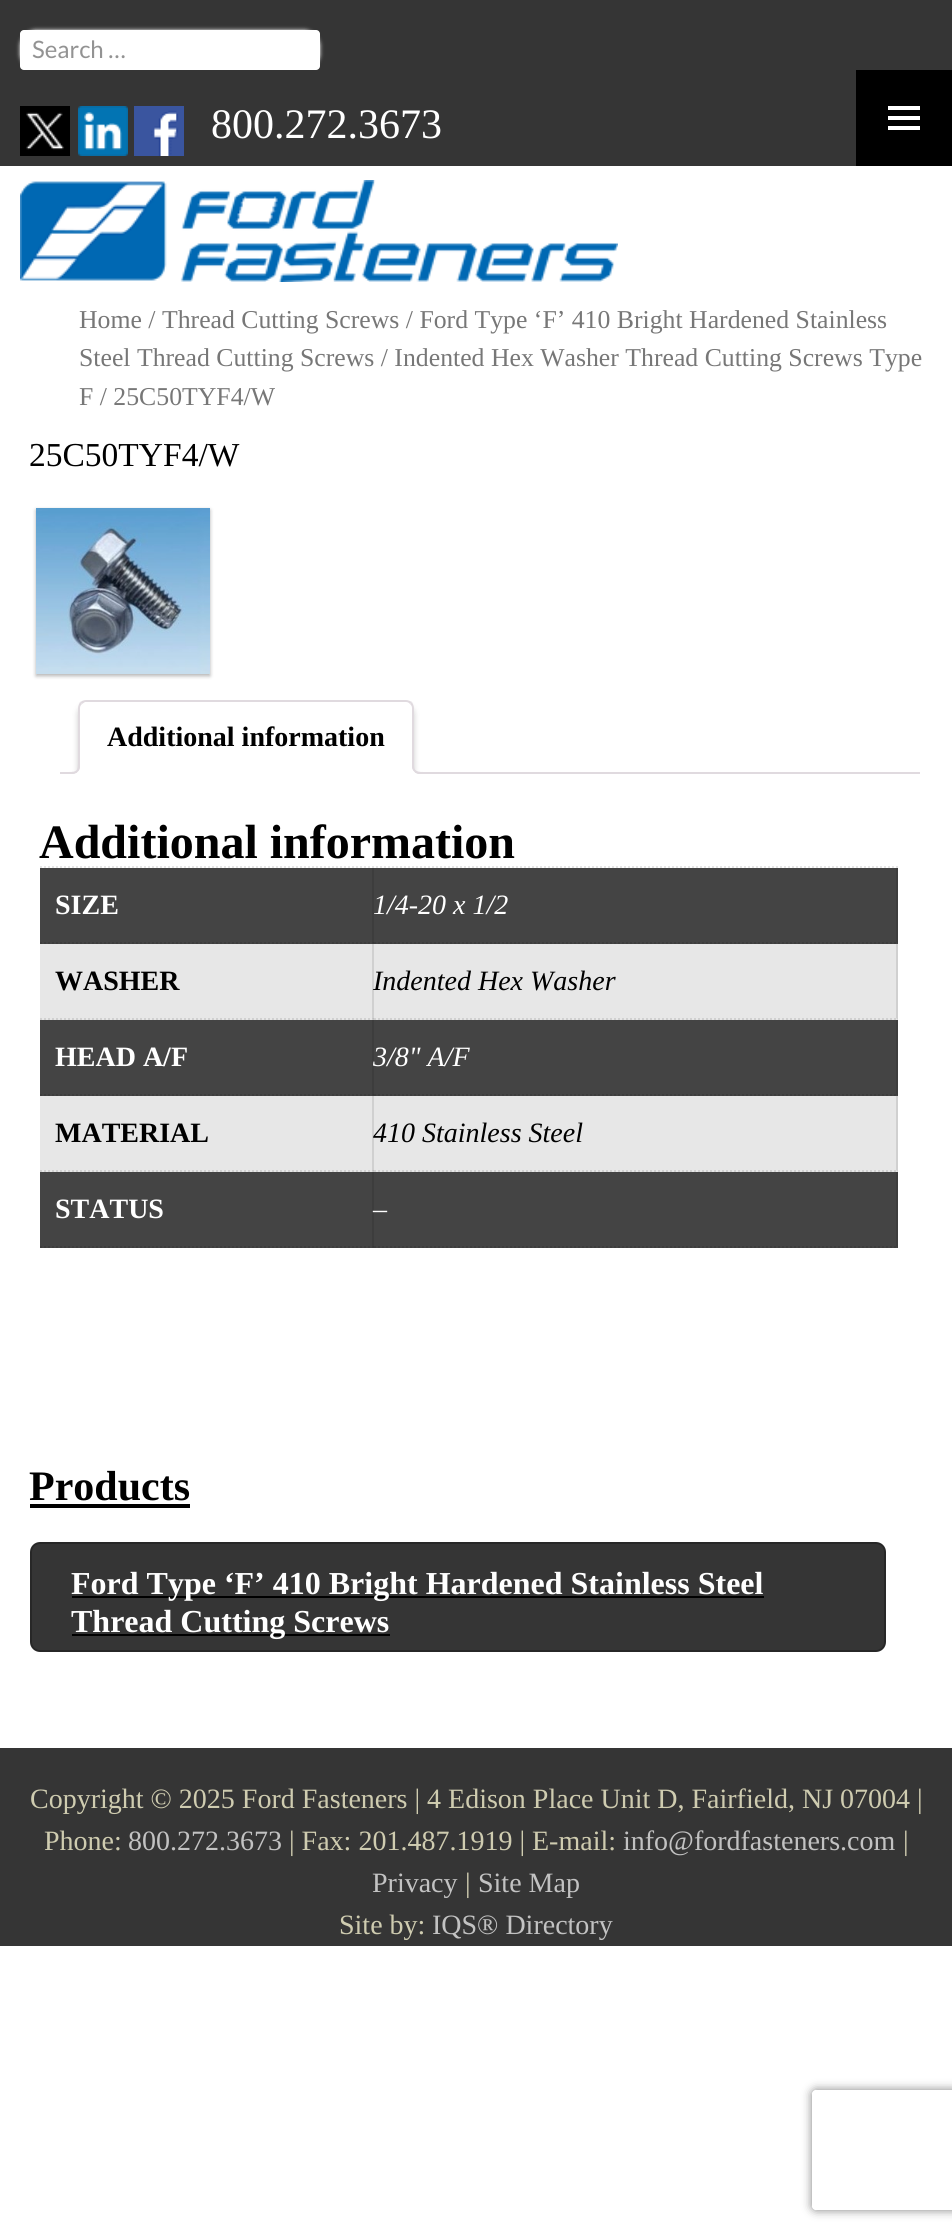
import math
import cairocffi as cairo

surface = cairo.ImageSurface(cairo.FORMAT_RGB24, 952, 2237)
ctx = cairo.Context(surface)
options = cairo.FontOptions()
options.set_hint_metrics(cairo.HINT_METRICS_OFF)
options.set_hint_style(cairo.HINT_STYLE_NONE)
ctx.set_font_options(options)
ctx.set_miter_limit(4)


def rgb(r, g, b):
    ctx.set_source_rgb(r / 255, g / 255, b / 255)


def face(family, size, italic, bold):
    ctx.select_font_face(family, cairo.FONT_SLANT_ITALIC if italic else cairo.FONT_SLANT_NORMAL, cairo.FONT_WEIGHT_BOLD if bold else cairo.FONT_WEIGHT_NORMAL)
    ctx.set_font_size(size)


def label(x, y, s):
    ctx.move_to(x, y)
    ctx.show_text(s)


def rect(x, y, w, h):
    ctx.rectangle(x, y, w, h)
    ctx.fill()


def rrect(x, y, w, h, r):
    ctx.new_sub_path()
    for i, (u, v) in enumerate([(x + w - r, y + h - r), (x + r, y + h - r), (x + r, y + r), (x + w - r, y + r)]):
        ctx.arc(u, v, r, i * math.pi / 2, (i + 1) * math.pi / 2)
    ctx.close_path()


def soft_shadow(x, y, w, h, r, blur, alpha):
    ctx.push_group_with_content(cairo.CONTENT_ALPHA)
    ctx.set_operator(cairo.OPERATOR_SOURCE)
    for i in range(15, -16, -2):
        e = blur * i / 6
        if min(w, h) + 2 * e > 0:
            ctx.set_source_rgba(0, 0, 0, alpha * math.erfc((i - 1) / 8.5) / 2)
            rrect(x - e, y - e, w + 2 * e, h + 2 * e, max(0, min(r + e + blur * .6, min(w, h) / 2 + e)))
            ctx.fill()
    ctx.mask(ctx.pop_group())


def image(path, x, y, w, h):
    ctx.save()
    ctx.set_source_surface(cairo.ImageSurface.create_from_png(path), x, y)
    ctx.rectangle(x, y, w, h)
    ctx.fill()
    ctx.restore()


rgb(255, 255, 255)
ctx.paint()
rgb(53, 53, 53)
rect(0, 0, 952, 70)
rgb(255, 255, 255)
soft_shadow(20, 30, 300, 40, 16, 2, 1)
rgb(53, 53, 53)
ctx.new_path()
ctx.move_to(36, 30)
ctx.line_to(320, 30)
ctx.line_to(320, 70)
ctx.line_to(36, 70)
ctx.curve_to(27, 70, 20, 63, 20, 54)
ctx.line_to(20, 46)
ctx.curve_to(20, 37, 27, 30, 36, 30)
ctx.close_path()
ctx.fill()
rgb(255, 255, 255)
rrect(20, 30, 300, 40, 4)
ctx.fill()
face('Lato', 24, 0, 0)
rgb(147, 147, 147)
label(32, 58, 'Search …')
rgb(53, 53, 53)
rect(0, 70, 856, 96)
image('image0.png', 20, 106, 50, 50)
image('image1.png', 78, 106, 50, 50)
image('image2.png', 134, 106, 50, 50)
face('Liberation Serif', 42, 0, 0)
rgb(255, 255, 255)
label(211, 138, '800.272.3673')
rgb(0, 0, 0)
rect(856, 70, 96, 96)
image('image3.png', 888, 106, 32, 24)
image('image4.png', 20, 180, 598, 102)
face('Liberation Serif', 25.75, 0, 0)
rgb(119, 119, 119)
label(79, 328, 'Home / Thread Cutting Screws / Ford Type ‘F’ 410 Bright Hardened Stainless')
label(79, 366, 'Steel Thread Cutting Screws / Indented Hex Washer Thread Cutting Screws Type')
label(79, 405, 'F / 25C50TYF4/W')
face('Liberation Serif', 33.5, 0, 0)
rgb(0, 0, 0)
label(29, 466, '25C50TYF4/W')
rgb(0, 0, 0)
soft_shadow(36, 510, 174, 166, 0, 2, 0.3)
image('image5.png', 36, 508, 174, 166)
rgb(224, 218, 223)
rect(60, 772, 860, 2)
ctx.save()
ctx.rectangle(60, 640, 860, 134)
ctx.clip()
rgb(0, 0, 0)
soft_shadow(78, 706, 336, 74, 8, 3, 0.2)
ctx.restore()
rgb(255, 255, 255)
ctx.new_path()
ctx.move_to(86, 700)
ctx.line_to(406, 700)
ctx.curve_to(410.5, 700, 414, 703.5, 414, 708)
ctx.line_to(414, 774)
ctx.line_to(78, 774)
ctx.line_to(78, 708)
ctx.curve_to(78, 703.5, 81.5, 700, 86, 700)
ctx.close_path()
ctx.fill()
rgb(224, 218, 223)
ctx.new_path()
ctx.move_to(86, 700)
ctx.curve_to(84, 700, 82, 701, 80, 702)
ctx.line_to(82, 704)
ctx.line_to(85, 702)
ctx.line_to(406, 702)
ctx.curve_to(408, 702, 409, 703, 410, 704)
ctx.line_to(412, 702)
ctx.curve_to(410, 701, 408, 700, 406, 700)
ctx.close_path()
ctx.fill()
ctx.new_path()
ctx.move_to(414, 774)
ctx.line_to(414, 708)
ctx.curve_to(414, 706, 413, 704, 412, 702)
ctx.line_to(410, 704)
ctx.curve_to(411, 705, 412, 706, 412, 708)
ctx.line_to(412, 772)
ctx.close_path()
ctx.fill()
rgb(255, 255, 255)
ctx.new_path()
ctx.move_to(414, 774)
ctx.line_to(412, 772)
ctx.line_to(80, 772)
ctx.line_to(78, 774)
ctx.close_path()
ctx.fill()
rgb(224, 218, 223)
ctx.new_path()
ctx.move_to(78, 774)
ctx.line_to(80, 772)
ctx.line_to(80, 708)
ctx.curve_to(80, 706, 81, 705, 82, 704)
ctx.line_to(80, 702)
ctx.curve_to(79, 704, 78, 706, 78, 708)
ctx.close_path()
ctx.fill()
face('Liberation Serif', 28, 0, 1)
rgb(0, 0, 0)
label(107, 746, 'Additional information')
ctx.save()
ctx.rectangle(60, 640, 860, 134)
ctx.clip()
rgb(255, 255, 255)
ctx.new_path()
ctx.move_to(72, 774)
ctx.line_to(72, 778)
ctx.line_to(77.5, 778)
ctx.curve_to(84, 776.5, 84, 771, 84, 766)
ctx.line_to(80, 766)
ctx.curve_to(80, 770.5, 76.5, 774, 72, 774)
ctx.close_path()
ctx.fill()
ctx.restore()
rgb(224, 218, 223)
ctx.set_fill_rule(cairo.FILL_RULE_EVEN_ODD)
ctx.new_path()
ctx.move_to(68, 762)
ctx.line_to(80, 762)
ctx.line_to(80, 767.5)
ctx.curve_to(78.5, 774, 73, 774, 68, 774)
ctx.close_path()
ctx.move_to(68, 762)
ctx.line_to(78, 762)
ctx.curve_to(78, 771, 77, 772, 68, 772)
ctx.close_path()
ctx.fill()
ctx.save()
ctx.set_fill_rule(cairo.FILL_RULE_WINDING)
ctx.rectangle(60, 640, 860, 134)
ctx.clip()
rgb(255, 255, 255)
ctx.new_path()
ctx.move_to(408, 766)
ctx.line_to(408, 771.5)
ctx.curve_to(409.5, 778, 415, 778, 420, 778)
ctx.line_to(420, 774)
ctx.curve_to(415.5, 774, 412, 770.5, 412, 766)
ctx.close_path()
ctx.fill()
ctx.restore()
ctx.new_path()
ctx.move_to(412, 762)
ctx.line_to(424, 762)
ctx.line_to(424, 774)
ctx.line_to(420, 774)
ctx.curve_to(415.5, 774, 412, 770.5, 412, 766)
ctx.close_path()
ctx.move_to(414, 762)
ctx.line_to(424, 762)
ctx.line_to(424, 772)
ctx.curve_to(419.5, 772, 414, 772, 414, 766)
ctx.close_path()
ctx.fill()
face('Liberation Serif', 48, 0, 1)
rgb(0, 0, 0)
label(39, 858, 'Additional information')
ctx.new_path()
ctx.move_to(40, 867)
ctx.line_to(898, 867)
rgb(230, 230, 230)
ctx.set_dash([2, 2])
ctx.stroke()
rgb(68, 68, 68)
rect(40, 868, 858, 76)
rgb(61, 61, 61)
ctx.set_fill_rule(cairo.FILL_RULE_WINDING)
ctx.new_path()
ctx.move_to(374, 868)
ctx.line_to(374, 944)
ctx.line_to(372, 942)
ctx.line_to(372, 868)
ctx.close_path()
ctx.fill()
ctx.new_path()
ctx.move_to(40, 943)
ctx.line_to(374, 943)
ctx.set_source_rgba(0, 0, 0, 0.1)
ctx.stroke()
face('Liberation Serif', 28, 0, 1)
rgb(255, 255, 255)
label(55, 914, 'SIZE')
rgb(61, 61, 61)
ctx.new_path()
ctx.move_to(898, 868)
ctx.line_to(898, 944)
ctx.line_to(896, 942)
ctx.line_to(896, 868)
ctx.close_path()
ctx.fill()
ctx.new_path()
ctx.move_to(374, 943)
ctx.line_to(898, 943)
ctx.stroke()
face('Liberation Serif', 28, 1, 0)
rgb(255, 255, 255)
label(373, 914, '1/4-20 x 1/2')
rgb(231, 231, 231)
rect(40, 944, 858, 76)
rgb(208, 208, 208)
ctx.new_path()
ctx.move_to(374, 944)
ctx.line_to(374, 1020)
ctx.line_to(372, 1018)
ctx.line_to(372, 944)
ctx.close_path()
ctx.fill()
ctx.new_path()
ctx.move_to(40, 1019)
ctx.line_to(374, 1019)
ctx.set_source_rgba(0, 0, 0, 0.1)
ctx.stroke()
face('Liberation Serif', 28, 0, 1)
rgb(0, 0, 0)
label(55, 990, 'WASHER')
rgb(208, 208, 208)
ctx.new_path()
ctx.move_to(898, 944)
ctx.line_to(898, 1020)
ctx.line_to(896, 1018)
ctx.line_to(896, 944)
ctx.close_path()
ctx.fill()
ctx.new_path()
ctx.move_to(374, 1019)
ctx.line_to(898, 1019)
ctx.stroke()
face('Liberation Serif', 28, 1, 0)
rgb(0, 0, 0)
label(373, 990, 'Indented Hex Washer')
rgb(68, 68, 68)
rect(40, 1020, 858, 76)
rgb(61, 61, 61)
ctx.new_path()
ctx.move_to(374, 1020)
ctx.line_to(374, 1096)
ctx.line_to(372, 1094)
ctx.line_to(372, 1020)
ctx.close_path()
ctx.fill()
ctx.new_path()
ctx.move_to(40, 1095)
ctx.line_to(374, 1095)
ctx.set_source_rgba(0, 0, 0, 0.1)
ctx.stroke()
face('Liberation Serif', 28, 0, 1)
rgb(255, 255, 255)
label(55, 1066, 'HEAD A/F')
rgb(61, 61, 61)
ctx.new_path()
ctx.move_to(898, 1020)
ctx.line_to(898, 1096)
ctx.line_to(896, 1094)
ctx.line_to(896, 1020)
ctx.close_path()
ctx.fill()
ctx.new_path()
ctx.move_to(374, 1095)
ctx.line_to(898, 1095)
ctx.stroke()
face('Liberation Serif', 28, 1, 0)
rgb(255, 255, 255)
label(373, 1066, '3/8" A/F')
rgb(231, 231, 231)
rect(40, 1096, 858, 76)
rgb(208, 208, 208)
ctx.new_path()
ctx.move_to(374, 1096)
ctx.line_to(374, 1172)
ctx.line_to(372, 1170)
ctx.line_to(372, 1096)
ctx.close_path()
ctx.fill()
ctx.new_path()
ctx.move_to(40, 1171)
ctx.line_to(374, 1171)
ctx.set_source_rgba(0, 0, 0, 0.1)
ctx.stroke()
face('Liberation Serif', 28, 0, 1)
rgb(0, 0, 0)
label(55, 1142, 'MATERIAL')
rgb(208, 208, 208)
ctx.new_path()
ctx.move_to(898, 1096)
ctx.line_to(898, 1172)
ctx.line_to(896, 1170)
ctx.line_to(896, 1096)
ctx.close_path()
ctx.fill()
ctx.new_path()
ctx.move_to(374, 1171)
ctx.line_to(898, 1171)
ctx.stroke()
face('Liberation Serif', 28, 1, 0)
rgb(0, 0, 0)
label(373, 1142, '410 Stainless Steel')
rgb(68, 68, 68)
rect(40, 1172, 858, 76)
rgb(61, 61, 61)
ctx.new_path()
ctx.move_to(374, 1172)
ctx.line_to(374, 1248)
ctx.line_to(372, 1246)
ctx.line_to(372, 1172)
ctx.close_path()
ctx.fill()
ctx.new_path()
ctx.move_to(40, 1247)
ctx.line_to(374, 1247)
ctx.set_source_rgba(0, 0, 0, 0.1)
ctx.stroke()
face('Liberation Serif', 28, 0, 1)
rgb(255, 255, 255)
label(55, 1218, 'STATUS')
rgb(61, 61, 61)
ctx.new_path()
ctx.move_to(898, 1172)
ctx.line_to(898, 1248)
ctx.line_to(896, 1246)
ctx.line_to(896, 1172)
ctx.close_path()
ctx.fill()
ctx.new_path()
ctx.move_to(374, 1247)
ctx.line_to(898, 1247)
ctx.stroke()
face('Liberation Serif', 28, 1, 0)
rgb(255, 255, 255)
label(373, 1218, '–')
face('Liberation Serif', 42, 0, 1)
rgb(0, 0, 0)
label(29, 1500, 'Products')
rect(30, 1504, 160, 4)
rgb(53, 53, 53)
rrect(31, 1543, 854, 108, 9)
ctx.fill_preserve()
rgb(39, 39, 39)
ctx.set_dash([])
ctx.stroke()
rgb(0, 0, 0)
rect(72, 1596, 692, 2)
face('Liberation Serif', 32, 0, 1)
rgb(255, 255, 255)
label(71, 1594, 'Ford Type ‘F’ 410 Bright Hardened Stainless Steel')
rgb(0, 0, 0)
rect(72, 1634, 318, 2)
rgb(255, 255, 255)
label(71, 1632, 'Thread Cutting Screws')
rgb(53, 53, 53)
rect(0, 1748, 952, 198)
face('Liberation Serif', 28, 0, 0)
rgb(207, 204, 176)
label(30, 1808, 'Copyright © 2025 Ford Fasteners | 4 Edison Place Unit D, Fairfield, NJ 07004 |')
label(44, 1850, 'Phone:')
rgb(194, 194, 194)
label(128, 1850, '800.272.3673')
rgb(207, 204, 176)
label(289, 1850, '| Fax: 201.487.1919 | E-mail:')
rgb(194, 194, 194)
label(623, 1850, 'info@fordfasteners.com')
rgb(207, 204, 176)
label(903, 1850, '|')
rgb(194, 194, 194)
label(372, 1892, 'Privacy')
rgb(207, 204, 176)
label(465, 1892, '|')
rgb(194, 194, 194)
label(478, 1892, 'Site Map')
rgb(207, 204, 176)
label(339, 1934, 'Site by:')
rgb(194, 194, 194)
label(432, 1934, 'IQS® Directory')
ctx.save()
ctx.set_fill_rule(cairo.FILL_RULE_EVEN_ODD)
ctx.new_path()
ctx.move_to(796, 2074)
ctx.line_to(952, 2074)
ctx.line_to(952, 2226)
ctx.line_to(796, 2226)
ctx.close_path()
ctx.move_to(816, 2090)
ctx.line_to(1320, 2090)
ctx.curve_to(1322, 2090, 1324, 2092, 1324, 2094)
ctx.line_to(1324, 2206)
ctx.curve_to(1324, 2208, 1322, 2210, 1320, 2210)
ctx.line_to(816, 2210)
ctx.curve_to(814, 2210, 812, 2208, 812, 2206)
ctx.line_to(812, 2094)
ctx.curve_to(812, 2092, 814, 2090, 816, 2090)
ctx.close_path()
ctx.clip()
rgb(128, 128, 128)
soft_shadow(812, 2090, 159, 120, 4, 5, 1)
ctx.restore()
surface.write_to_png('render.png')
